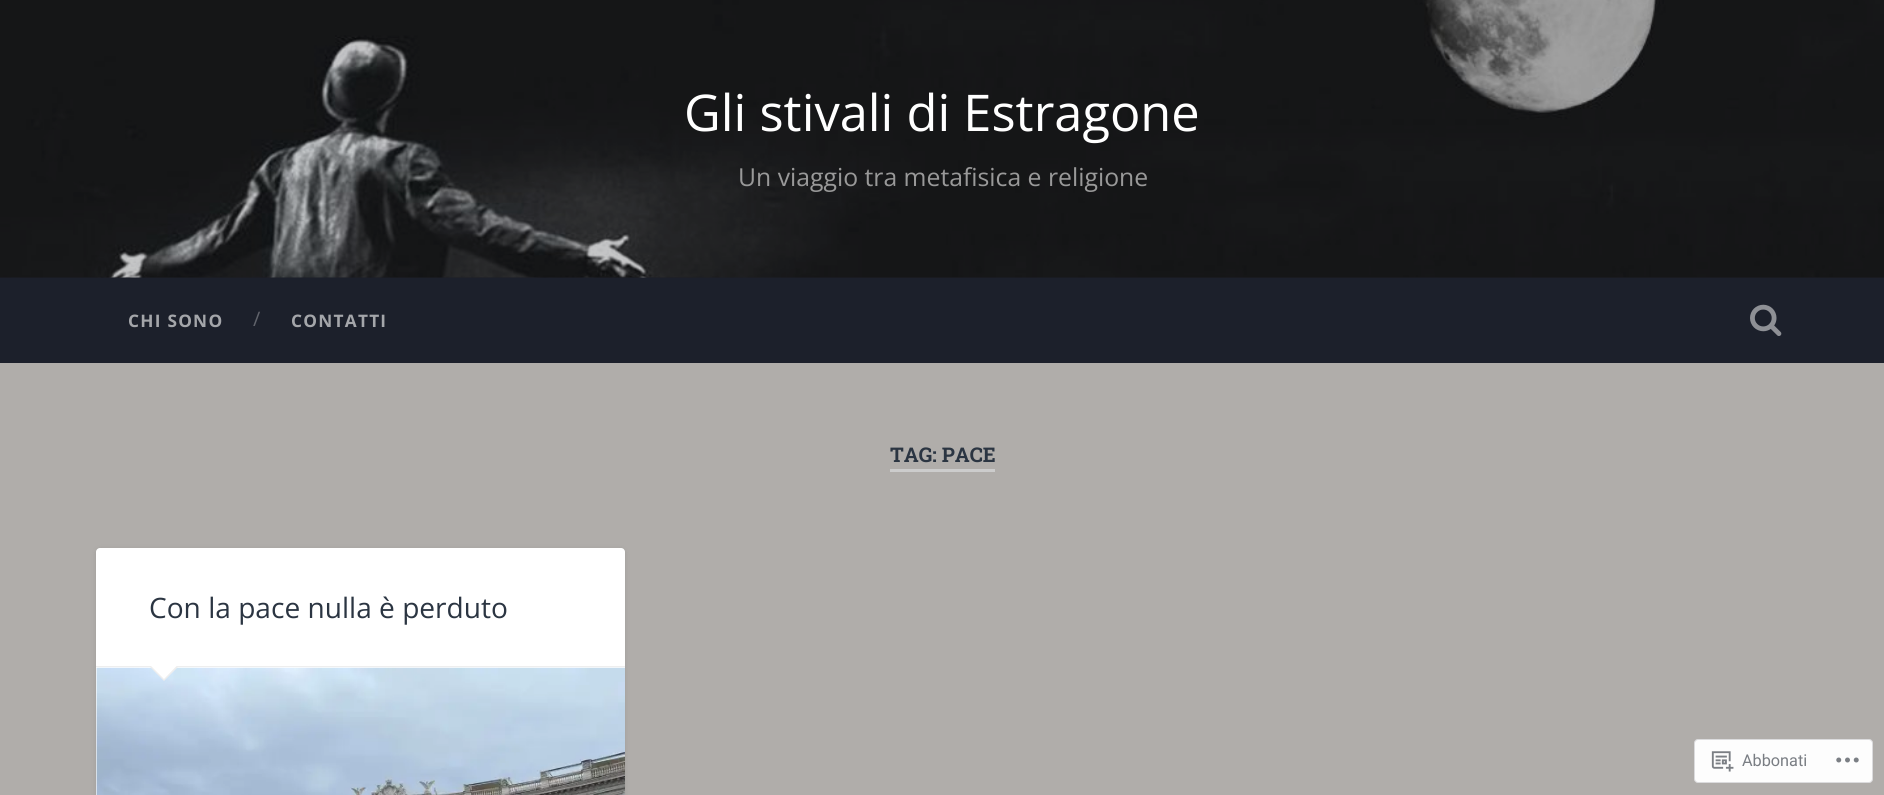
import math
import cairocffi as cairo

surface = cairo.ImageSurface(cairo.FORMAT_RGB24, 1884, 795)
ctx = cairo.Context(surface)
options = cairo.FontOptions()
options.set_hint_metrics(cairo.HINT_METRICS_OFF)
options.set_hint_style(cairo.HINT_STYLE_NONE)
ctx.set_font_options(options)
ctx.set_miter_limit(4)


def rgb(r, g, b):
    ctx.set_source_rgb(r / 255, g / 255, b / 255)


def face(family, size, italic, bold):
    ctx.select_font_face(family, cairo.FONT_SLANT_ITALIC if italic else cairo.FONT_SLANT_NORMAL, cairo.FONT_WEIGHT_BOLD if bold else cairo.FONT_WEIGHT_NORMAL)
    ctx.set_font_size(size)


def label(x, y, s):
    ctx.move_to(x, y)
    ctx.show_text(s)


def tracked(x, y, s, letter, word):
    ctx.move_to(x, y)
    for ch in s:
        ctx.show_text(ch)
        ctx.rel_move_to(letter + word * (ch == ' '), 0)


def rect(x, y, w, h):
    ctx.rectangle(x, y, w, h)
    ctx.fill()


def rrect(x, y, w, h, r):
    ctx.new_sub_path()
    for i, (u, v) in enumerate([(x + w - r, y + h - r), (x + r, y + h - r), (x + r, y + r), (x + w - r, y + r)]):
        ctx.arc(u, v, r, i * math.pi / 2, (i + 1) * math.pi / 2)
    ctx.close_path()


def soft_shadow(x, y, w, h, r, blur, alpha):
    ctx.push_group_with_content(cairo.CONTENT_ALPHA)
    ctx.set_operator(cairo.OPERATOR_SOURCE)
    for i in range(15, -16, -2):
        e = blur * i / 6
        if min(w, h) + 2 * e > 0:
            ctx.set_source_rgba(0, 0, 0, alpha * math.erfc((i - 1) / 8.5) / 2)
            rrect(x - e, y - e, w + 2 * e, h + 2 * e, max(0, min(r + e + blur * .6, min(w, h) / 2 + e)))
            ctx.fill()
    ctx.mask(ctx.pop_group())


def image(path, x, y, w, h):
    ctx.save()
    ctx.set_source_surface(cairo.ImageSurface.create_from_png(path), x, y)
    ctx.rectangle(x, y, w, h)
    ctx.fill()
    ctx.restore()


rgb(176, 173, 170)
ctx.paint()
rgb(28, 31, 40)
rect(0, 277, 1884, 1)
image('image0.png', 0, 0, 1884, 278)
face('Open Sans', 50.6, 0, 0)
rgb(255, 255, 255)
label(684, 131, 'Gli stivali di Estragone')
face('Open Sans', 24.75, 0, 0)
rgb(153, 153, 153)
label(738, 186, 'Un viaggio tra metafisica e religione')
rgb(28, 32, 43)
rect(0, 278, 1884, 85)
face('Open Sans', 17.25, 0, 1)
rgb(164, 166, 170)
tracked(128, 327, 'CHI SONO', 1.25, 0)
face('Open Sans', 20, 0, 0)
rgb(96, 99, 107)
label(253, 326, '/')
face('Open Sans', 17.25, 0, 1)
rgb(164, 166, 170)
tracked(291, 327, 'CONTATTI', 1.25, 0)
image('image1.png', 1750, 304, 32, 32)
rgb(204, 204, 204)
rect(890, 469, 105, 3)
face('Roboto Slab', 20.25, 0, 1)
rgb(43, 53, 66)
label(890, 462, 'TAG: PACE')
rgb(0, 0, 0)
soft_shadow(96, 549, 529, 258, 4, 2.5, 0.1)
rgb(255, 255, 255)
rrect(96, 548, 529, 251, 4)
ctx.fill()
rgb(238, 238, 238)
rect(96, 666, 529, 1)
face('Open Sans', 28.1, 0, 0)
rgb(43, 53, 66)
label(149, 618, 'Con la pace nulla è perduto')
image('image2.png', 96, 667, 529, 128)
rgb(238, 238, 238)
ctx.new_path()
ctx.move_to(149, 666)
ctx.line_to(179, 666)
ctx.line_to(164, 681)
ctx.close_path()
ctx.fill()
rgb(255, 255, 255)
ctx.new_path()
ctx.move_to(150, 665)
ctx.line_to(177.5, 665)
ctx.line_to(164, 679)
ctx.close_path()
ctx.fill()
rgb(253, 253, 253)
rrect(1694.5, 739.5, 178, 43, 3.5)
ctx.fill_preserve()
rgb(219, 219, 221)
ctx.set_line_width(1)
ctx.stroke()
image('image3.png', 1711, 751, 23, 21)
face('Roboto', 16.25, 0, 0)
rgb(121, 125, 131)
label(1742, 766, 'Abbonati')
image('image4.png', 1836, 757, 23, 6)
surface.write_to_png('render.png')
